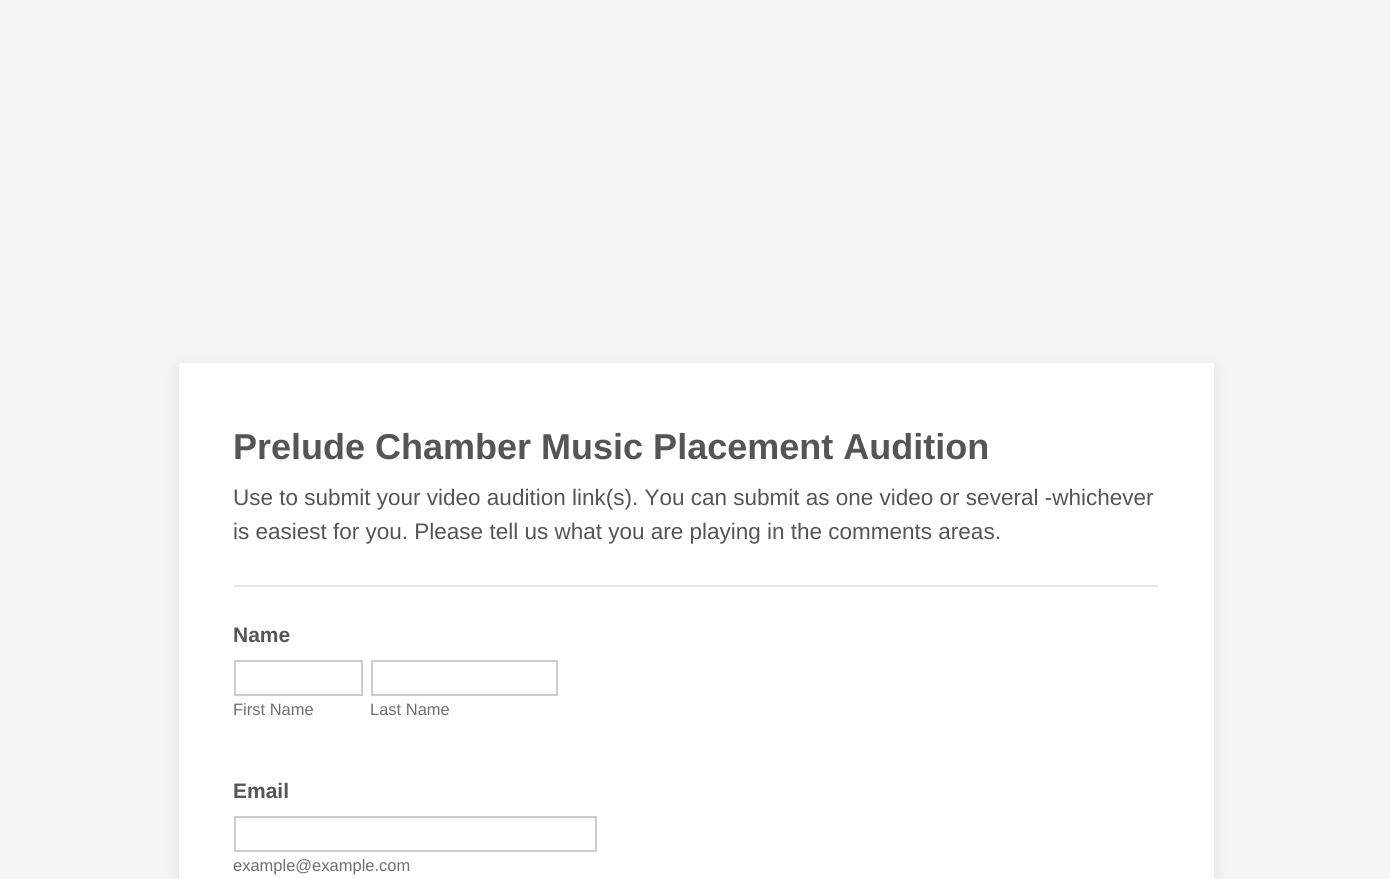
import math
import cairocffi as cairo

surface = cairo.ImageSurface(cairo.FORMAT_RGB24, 1390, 879)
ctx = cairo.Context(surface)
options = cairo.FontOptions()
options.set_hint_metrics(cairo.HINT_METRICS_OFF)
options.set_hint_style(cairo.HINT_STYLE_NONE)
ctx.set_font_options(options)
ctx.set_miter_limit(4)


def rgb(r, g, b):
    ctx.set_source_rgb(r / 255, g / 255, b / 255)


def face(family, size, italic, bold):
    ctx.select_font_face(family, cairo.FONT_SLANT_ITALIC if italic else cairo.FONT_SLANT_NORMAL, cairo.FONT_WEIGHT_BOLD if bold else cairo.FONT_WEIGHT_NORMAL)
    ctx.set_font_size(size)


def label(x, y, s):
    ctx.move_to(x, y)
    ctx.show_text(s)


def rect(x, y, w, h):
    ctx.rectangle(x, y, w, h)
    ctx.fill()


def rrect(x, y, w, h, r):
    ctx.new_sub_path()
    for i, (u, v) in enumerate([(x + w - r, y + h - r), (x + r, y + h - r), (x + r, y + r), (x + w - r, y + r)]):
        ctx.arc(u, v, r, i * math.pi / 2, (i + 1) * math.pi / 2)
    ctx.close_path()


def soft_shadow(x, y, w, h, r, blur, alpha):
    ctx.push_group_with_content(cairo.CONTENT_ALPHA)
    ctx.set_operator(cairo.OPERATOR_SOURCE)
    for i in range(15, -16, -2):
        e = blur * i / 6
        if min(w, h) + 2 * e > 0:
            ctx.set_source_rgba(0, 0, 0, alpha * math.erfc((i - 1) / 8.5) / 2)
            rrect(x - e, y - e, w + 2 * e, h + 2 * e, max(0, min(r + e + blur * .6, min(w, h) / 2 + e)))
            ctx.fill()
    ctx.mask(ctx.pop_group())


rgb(245, 245, 245)
ctx.paint()
rgb(0, 0, 0)
soft_shadow(179, 368, 1035, 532, 0, 7, 0.1)
rgb(255, 255, 255)
rect(179, 363, 1035, 516)
rgb(230, 230, 230)
rect(234, 585, 924, 2)
face('Liberation Sans', 36, 0, 1)
rgb(85, 85, 85)
label(233, 459, 'Prelude Chamber Music Placement Audition')
face('Liberation Sans', 22.5, 0, 0)
label(233, 505, 'Use to submit your video audition link(s). You can submit as one video or several -whichever')
label(233, 539, 'is easiest for you. Please tell us what you are playing in the comments areas.')
face('Liberation Sans', 21, 0, 1)
label(233, 642, 'Name')
ctx.rectangle(235, 661, 127, 34)
rgb(204, 204, 204)
ctx.stroke()
face('Liberation Sans', 16.5, 0, 0)
rgb(111, 111, 111)
label(233, 715, 'First Name')
ctx.rectangle(372, 661, 185, 34)
rgb(204, 204, 204)
ctx.stroke()
rgb(111, 111, 111)
label(370, 715, 'Last Name')
face('Liberation Sans', 21, 0, 1)
rgb(85, 85, 85)
label(233, 798, 'Email')
ctx.rectangle(235, 817, 361, 34)
rgb(204, 204, 204)
ctx.stroke()
face('Liberation Sans', 16.5, 0, 0)
rgb(111, 111, 111)
label(233, 871, 'example@example.com')
surface.write_to_png('render.png')
